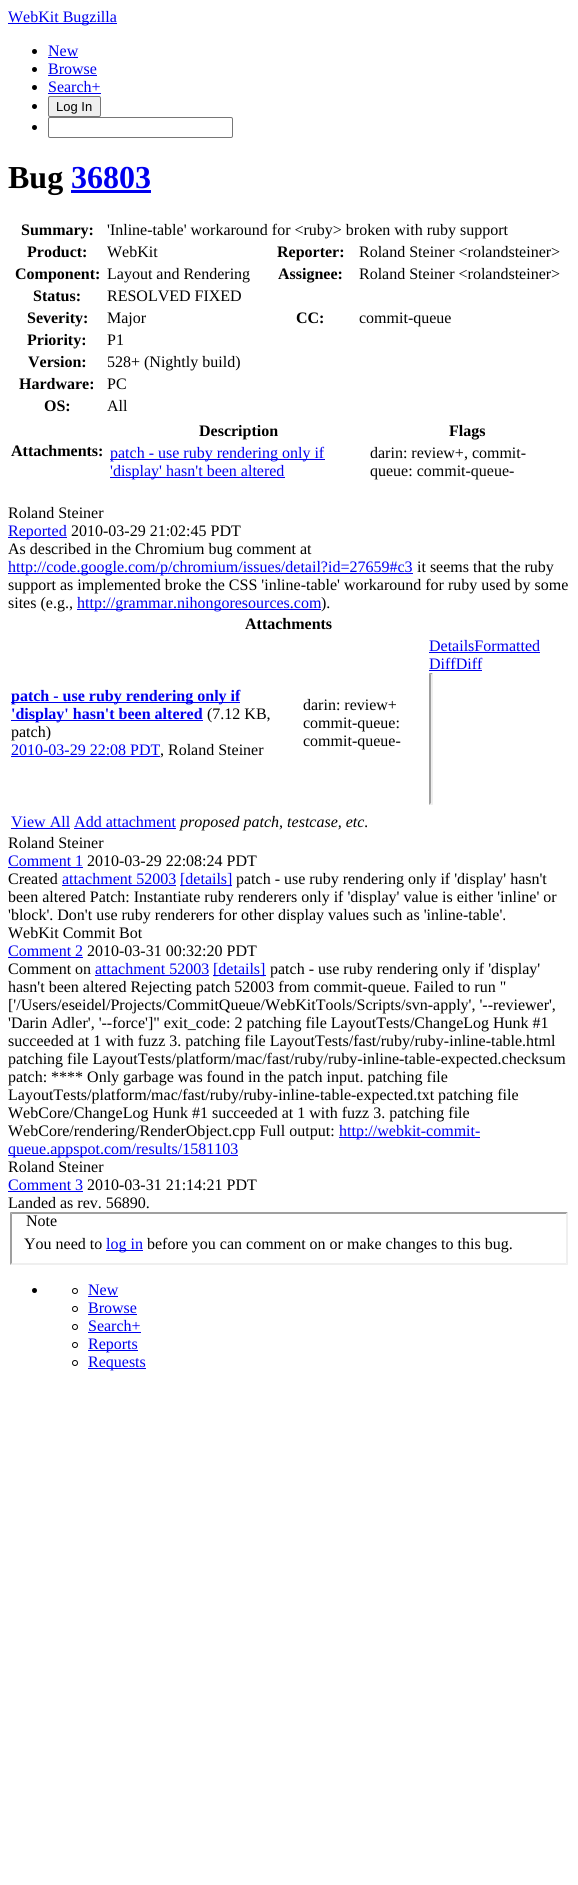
import math
import cairocffi as cairo

surface = cairo.ImageSurface(cairo.FORMAT_RGB24, 578, 1885)
ctx = cairo.Context(surface)
options = cairo.FontOptions()
options.set_hint_metrics(cairo.HINT_METRICS_OFF)
options.set_hint_style(cairo.HINT_STYLE_NONE)
ctx.set_font_options(options)
ctx.set_miter_limit(4)


def rgb(r, g, b):
    ctx.set_source_rgb(r / 255, g / 255, b / 255)


def face(family, size, italic, bold):
    ctx.select_font_face(family, cairo.FONT_SLANT_ITALIC if italic else cairo.FONT_SLANT_NORMAL, cairo.FONT_WEIGHT_BOLD if bold else cairo.FONT_WEIGHT_NORMAL)
    ctx.set_font_size(size)


def label(x, y, s):
    ctx.move_to(x, y)
    ctx.show_text(s)


def rect(x, y, w, h):
    ctx.rectangle(x, y, w, h)
    ctx.fill()


def rrect(x, y, w, h, r):
    ctx.new_sub_path()
    for i, (u, v) in enumerate([(x + w - r, y + h - r), (x + r, y + h - r), (x + r, y + r), (x + w - r, y + r)]):
        ctx.arc(u, v, r, i * math.pi / 2, (i + 1) * math.pi / 2)
    ctx.close_path()


rgb(255, 255, 255)
ctx.paint()
rgb(0, 0, 238)
rect(8, 23, 109, 1)
face('Liberation Serif', 16, 0, 0)
label(8, 22, 'WebKit Bugzilla')
rgb(0, 0, 0)
ctx.new_path()
ctx.arc(34.5, 51.5, 2.5, 0, 2 * math.pi)
ctx.fill()
rgb(0, 0, 238)
label(48, 56, 'New')
rect(48, 57, 30, 1)
rgb(0, 0, 0)
ctx.new_path()
ctx.arc(34.5, 69.5, 2.5, 0, 2 * math.pi)
ctx.fill()
rgb(0, 0, 238)
label(48, 74, 'Browse')
rect(48, 75, 49, 1)
rgb(0, 0, 0)
ctx.new_path()
ctx.arc(34.5, 87.5, 2.5, 0, 2 * math.pi)
ctx.fill()
rgb(0, 0, 238)
label(48, 92, 'Search+')
rect(48, 93, 53, 1)
rgb(0, 0, 0)
ctx.new_path()
ctx.arc(34.5, 106.5, 2.5, 0, 2 * math.pi)
ctx.fill()
rgb(239, 239, 239)
rrect(48.5, 96.5, 52, 20, 1.5)
ctx.fill_preserve()
rgb(118, 118, 118)
ctx.set_line_width(1)
ctx.stroke()
face('Liberation Sans', 13, 0, 0)
rgb(0, 0, 0)
label(56, 111, 'Log In')
ctx.new_path()
ctx.arc(34.5, 127.5, 2.5, 0, 2 * math.pi)
ctx.fill()
rrect(48.5, 117.5, 184, 20, 1.5)
rgb(118, 118, 118)
ctx.stroke()
face('Liberation Serif', 32, 0, 1)
rgb(0, 0, 0)
label(8, 188, 'Bug')
rgb(0, 0, 238)
label(71, 188, '36803')
rect(71, 190, 80, 3)
face('Liberation Serif', 16, 0, 1)
rgb(0, 0, 0)
label(21, 235, 'Summary:')
face('Liberation Serif', 16, 0, 0)
label(107, 235, '\'Inline-table\' workaround for <ruby> broken with ruby support')
face('Liberation Serif', 16, 0, 1)
label(27, 257, 'Product:')
face('Liberation Serif', 16, 0, 0)
label(107, 257, 'WebKit')
face('Liberation Serif', 16, 0, 1)
label(277, 257, 'Reporter:')
face('Liberation Serif', 16, 0, 0)
label(359, 257, 'Roland Steiner <rolandsteiner>')
face('Liberation Serif', 16, 0, 1)
label(15, 279, 'Component:')
face('Liberation Serif', 16, 0, 0)
label(107, 279, 'Layout and Rendering')
face('Liberation Serif', 16, 0, 1)
label(278, 279, 'Assignee:')
face('Liberation Serif', 16, 0, 0)
label(359, 279, 'Roland Steiner <rolandsteiner>')
face('Liberation Serif', 16, 0, 1)
label(33, 301, 'Status:')
face('Liberation Serif', 16, 0, 0)
label(107, 301, 'RESOLVED FIXED')
face('Liberation Serif', 16, 0, 1)
label(27, 323, 'Severity:')
face('Liberation Serif', 16, 0, 0)
label(107, 323, 'Major')
face('Liberation Serif', 16, 0, 1)
label(296, 323, 'CC:')
face('Liberation Serif', 16, 0, 0)
label(359, 323, 'commit-queue')
face('Liberation Serif', 16, 0, 1)
label(27, 345, 'Priority:')
face('Liberation Serif', 16, 0, 0)
label(107, 345, 'P1')
face('Liberation Serif', 16, 0, 1)
label(28, 367, 'Version:')
face('Liberation Serif', 16, 0, 0)
label(107, 367, '528+ (Nightly build)')
face('Liberation Serif', 16, 0, 1)
label(19, 389, 'Hardware:')
face('Liberation Serif', 16, 0, 0)
label(107, 389, 'PC')
face('Liberation Serif', 16, 0, 1)
label(44, 411, 'OS:')
face('Liberation Serif', 16, 0, 0)
label(107, 411, 'All')
face('Liberation Serif', 16, 0, 1)
label(11, 456, 'Attachments:')
label(199, 436, 'Description')
label(449, 436, 'Flags')
rgb(0, 0, 238)
rect(110, 459, 215, 1)
face('Liberation Serif', 16, 0, 0)
label(110, 458, 'patch - use ruby rendering only if')
rect(110, 477, 175, 1)
label(110, 476, '\'display\' hasn\'t been altered')
rgb(0, 0, 0)
label(370, 458, 'darin: review+, commit-')
label(370, 476, 'queue: commit-queue-')
label(8, 518, 'Roland Steiner')
rgb(0, 0, 238)
rect(8, 537, 59, 1)
label(8, 536, 'Reported')
rgb(0, 0, 0)
label(71, 536, '2010-03-29 21:02:45 PDT')
label(8, 554, 'As described in the Chromium bug comment at')
rgb(0, 0, 238)
rect(8, 573, 405, 1)
label(8, 572, 'http://code.google.com/p/chromium/issues/detail?id=27659#c3')
rgb(0, 0, 0)
label(417, 572, 'it seems that the ruby')
label(8, 590, 'support as implemented broke the CSS \'inline-table\' workaround for ruby used by some')
label(8, 608, 'sites (e.g.,')
rgb(0, 0, 238)
rect(77, 609, 244, 1)
label(77, 608, 'http://grammar.nihongoresources.com')
rgb(0, 0, 0)
label(321, 608, ').')
face('Liberation Serif', 16, 0, 1)
label(245, 629, 'Attachments')
face('Liberation Serif', 16, 0, 0)
rgb(0, 0, 238)
label(429, 651, 'DetailsFormatted')
rect(429, 652, 111, 1)
label(429, 669, 'DiffDiff')
rect(429, 670, 53, 1)
rgb(159, 159, 159)
ctx.new_path()
ctx.move_to(429, 673)
ctx.line_to(433, 673)
ctx.line_to(431, 675)
ctx.close_path()
ctx.fill()
rgb(238, 238, 238)
ctx.new_path()
ctx.move_to(433, 673)
ctx.line_to(433, 805)
ctx.line_to(431, 803)
ctx.line_to(431, 675)
ctx.close_path()
ctx.fill()
ctx.new_path()
ctx.move_to(433, 805)
ctx.line_to(429, 805)
ctx.line_to(431, 803)
ctx.close_path()
ctx.fill()
rgb(159, 159, 159)
ctx.new_path()
ctx.move_to(429, 805)
ctx.line_to(429, 673)
ctx.line_to(431, 675)
ctx.line_to(431, 803)
ctx.close_path()
ctx.fill()
rgb(0, 0, 238)
rect(11, 702, 229, 1)
face('Liberation Serif', 16, 0, 1)
label(11, 701, 'patch - use ruby rendering only if')
rect(11, 720, 192, 1)
label(11, 719, '\'display\' hasn\'t been altered')
face('Liberation Serif', 16, 0, 0)
rgb(0, 0, 0)
label(207, 719, '(7.12 KB,')
label(11, 737, 'patch)')
rgb(0, 0, 238)
label(11, 755, '2010-03-29 22:08 PDT')
rgb(0, 0, 0)
label(160, 755, ', Roland Steiner')
rgb(0, 0, 238)
rect(11, 756, 149, 1)
rgb(0, 0, 0)
label(303, 710, 'darin: review+')
label(303, 728, 'commit-queue:')
label(303, 746, 'commit-queue-')
rgb(0, 0, 238)
label(11, 827, 'View All Add attachment')
rect(11, 828, 59, 1)
face('Liberation Serif', 16, 1, 0)
rgb(0, 0, 0)
label(180, 827, 'proposed patch, testcase, etc.')
rgb(0, 0, 238)
rect(74, 828, 102, 1)
face('Liberation Serif', 16, 0, 0)
rgb(0, 0, 0)
label(8, 848, 'Roland Steiner')
rgb(0, 0, 238)
label(8, 866, 'Comment 1')
rect(8, 867, 75, 1)
rgb(0, 0, 0)
label(87, 866, '2010-03-29 22:08:24 PDT')
label(8, 884, 'Created')
rgb(0, 0, 238)
label(62, 884, 'attachment 52003')
rect(62, 885, 114, 1)
rect(180, 885, 52, 1)
label(180, 884, '[details]')
rgb(0, 0, 0)
label(236, 884, 'patch - use ruby rendering only if \'display\' hasn\'t')
label(8, 902, 'been altered Patch: Instantiate ruby renderers only if \'display\' value is either \'inline\' or')
label(8, 920, '\'block\'. Don\'t use ruby renderers for other display values such as \'inline-table\'.')
label(8, 938, 'WebKit Commit Bot')
rgb(0, 0, 238)
label(8, 956, 'Comment 2')
rect(8, 957, 75, 1)
rgb(0, 0, 0)
label(87, 956, '2010-03-31 00:32:20 PDT')
label(8, 974, 'Comment on')
rgb(0, 0, 238)
label(95, 974, 'attachment 52003')
rect(95, 975, 114, 1)
rect(213, 975, 53, 1)
label(213, 974, '[details]')
rgb(0, 0, 0)
label(270, 974, 'patch - use ruby rendering only if \'display\'')
label(8, 992, 'hasn\'t been altered Rejecting patch 52003 from commit-queue. Failed to run "')
label(8, 1010, '[\'/Users/eseidel/Projects/CommitQueue/WebKitTools/Scripts/svn-apply\', \'--reviewer\',')
label(8, 1028, '\'Darin Adler\', \'--force\']" exit_code: 2 patching file LayoutTests/ChangeLog Hunk #1')
label(8, 1046, 'succeeded at 1 with fuzz 3. patching file LayoutTests/fast/ruby/ruby-inline-table.html')
label(8, 1064, 'patching file LayoutTests/platform/mac/fast/ruby/ruby-inline-table-expected.checksum')
label(8, 1082, 'patch: **** Only garbage was found in the patch input. patching file')
label(8, 1100, 'LayoutTests/platform/mac/fast/ruby/ruby-inline-table-expected.txt patching file')
label(8, 1118, 'WebCore/ChangeLog Hunk #1 succeeded at 1 with fuzz 3. patching file')
label(8, 1136, 'WebCore/rendering/RenderObject.cpp Full output:')
rgb(0, 0, 238)
rect(339, 1137, 141, 1)
label(339, 1136, 'http://webkit-commit-')
rect(8, 1155, 230, 1)
label(8, 1154, 'queue.appspot.com/results/1581103')
rgb(0, 0, 0)
label(8, 1172, 'Roland Steiner')
rgb(0, 0, 238)
label(8, 1190, 'Comment 3')
rect(8, 1191, 75, 1)
rgb(0, 0, 0)
label(87, 1190, '2010-03-31 21:14:21 PDT')
label(8, 1208, 'Landed as rev. 56890.')
rgb(159, 159, 159)
ctx.new_path()
ctx.move_to(10, 1212)
ctx.line_to(568, 1212)
ctx.line_to(566, 1214)
ctx.line_to(12, 1214)
ctx.close_path()
ctx.fill()
rgb(239, 239, 239)
ctx.new_path()
ctx.move_to(568, 1212)
ctx.line_to(568, 1265)
ctx.line_to(566, 1263)
ctx.line_to(566, 1214)
ctx.close_path()
ctx.fill()
ctx.new_path()
ctx.move_to(568, 1265)
ctx.line_to(10, 1265)
ctx.line_to(12, 1263)
ctx.line_to(566, 1263)
ctx.close_path()
ctx.fill()
rgb(159, 159, 159)
ctx.new_path()
ctx.move_to(10, 1265)
ctx.line_to(10, 1212)
ctx.line_to(12, 1214)
ctx.line_to(12, 1263)
ctx.close_path()
ctx.fill()
rgb(0, 0, 0)
label(26, 1226, 'Note')
label(24, 1249, 'You need to')
rgb(0, 0, 238)
rect(106, 1250, 37, 1)
label(106, 1249, 'log in')
rgb(0, 0, 0)
label(147, 1249, 'before you can comment on or make changes to this bug.')
ctx.new_path()
ctx.arc(34.5, 1290.5, 2.5, 0, 2 * math.pi)
ctx.fill()
ctx.arc(75, 1291, 2.5, 0, 2 * math.pi)
ctx.stroke()
rgb(0, 0, 238)
label(88, 1295, 'New')
rect(88, 1296, 30, 1)
ctx.new_path()
ctx.arc(75, 1309, 2.5, 0, 2 * math.pi)
rgb(0, 0, 0)
ctx.stroke()
rgb(0, 0, 238)
label(88, 1313, 'Browse')
rect(88, 1314, 49, 1)
ctx.new_path()
ctx.arc(75, 1327, 2.5, 0, 2 * math.pi)
rgb(0, 0, 0)
ctx.stroke()
rgb(0, 0, 238)
label(88, 1331, 'Search+')
rect(88, 1332, 53, 1)
ctx.new_path()
ctx.arc(75, 1345, 2.5, 0, 2 * math.pi)
rgb(0, 0, 0)
ctx.stroke()
rgb(0, 0, 238)
rect(88, 1350, 50, 1)
label(88, 1349, 'Reports')
ctx.new_path()
ctx.arc(75, 1363, 2.5, 0, 2 * math.pi)
rgb(0, 0, 0)
ctx.stroke()
rgb(0, 0, 238)
rect(88, 1368, 58, 1)
label(88, 1367, 'Requests')
surface.write_to_png('render.png')
